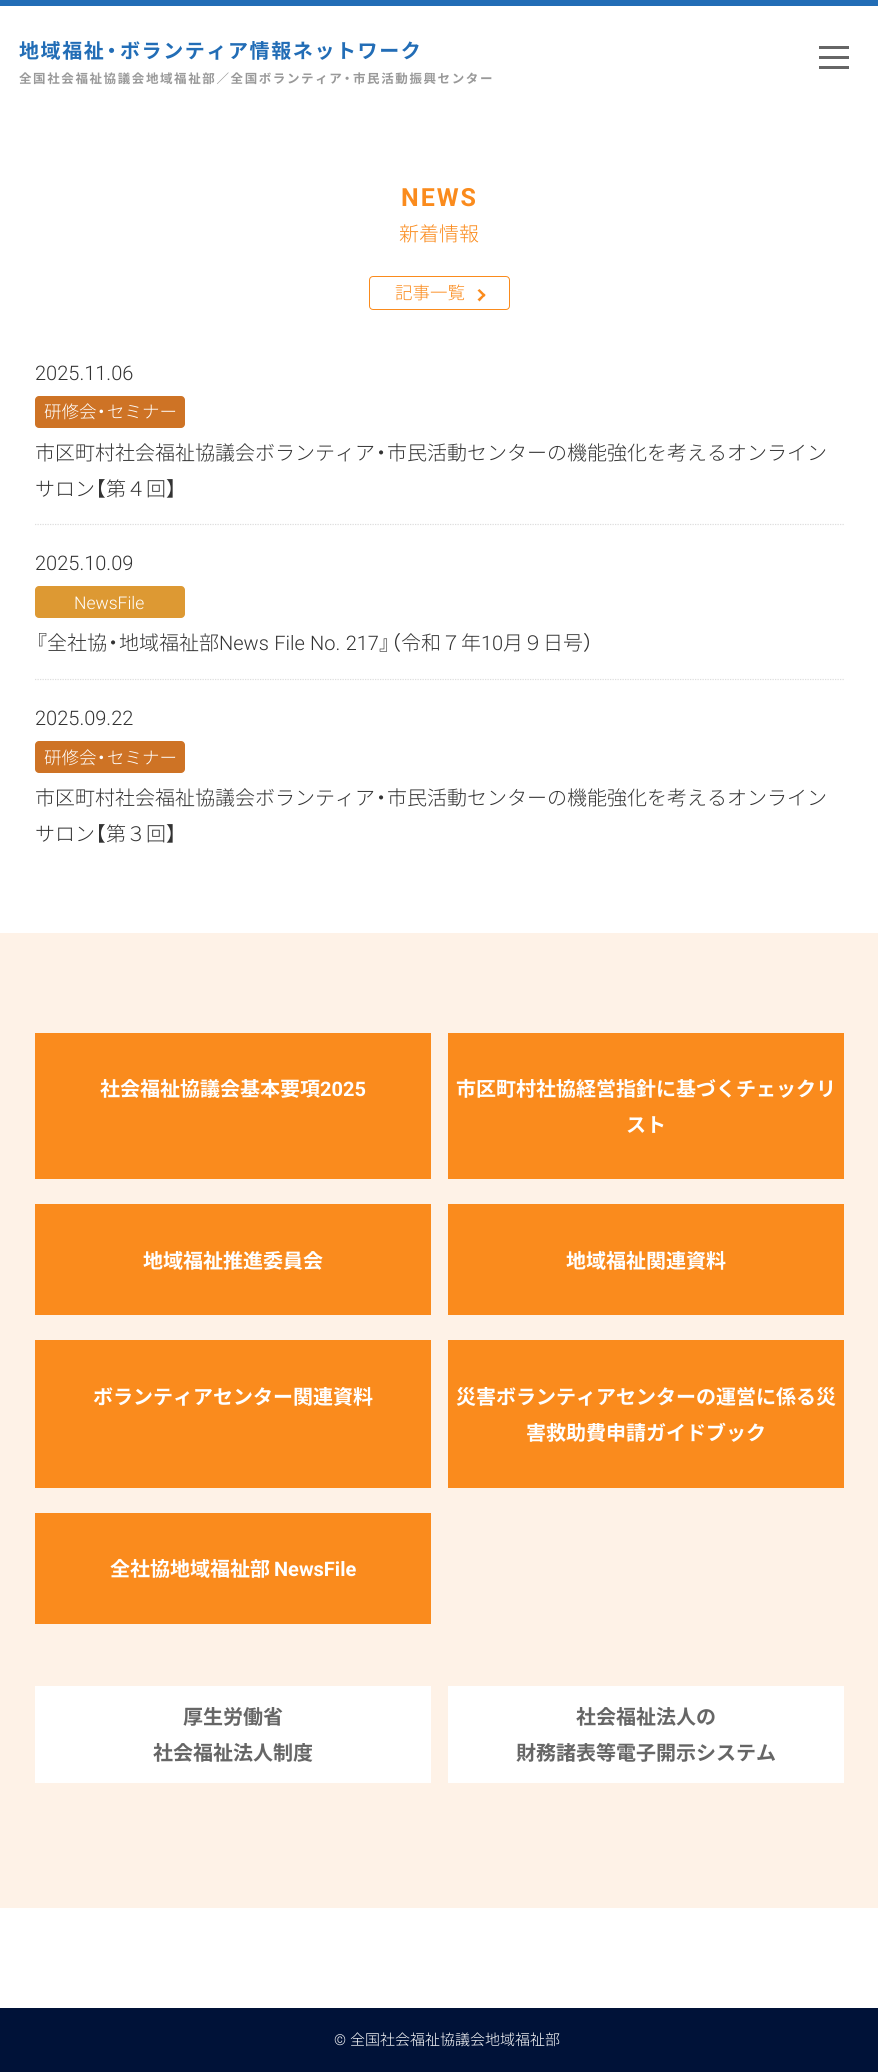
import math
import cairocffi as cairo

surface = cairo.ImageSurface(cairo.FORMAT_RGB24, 878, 2072)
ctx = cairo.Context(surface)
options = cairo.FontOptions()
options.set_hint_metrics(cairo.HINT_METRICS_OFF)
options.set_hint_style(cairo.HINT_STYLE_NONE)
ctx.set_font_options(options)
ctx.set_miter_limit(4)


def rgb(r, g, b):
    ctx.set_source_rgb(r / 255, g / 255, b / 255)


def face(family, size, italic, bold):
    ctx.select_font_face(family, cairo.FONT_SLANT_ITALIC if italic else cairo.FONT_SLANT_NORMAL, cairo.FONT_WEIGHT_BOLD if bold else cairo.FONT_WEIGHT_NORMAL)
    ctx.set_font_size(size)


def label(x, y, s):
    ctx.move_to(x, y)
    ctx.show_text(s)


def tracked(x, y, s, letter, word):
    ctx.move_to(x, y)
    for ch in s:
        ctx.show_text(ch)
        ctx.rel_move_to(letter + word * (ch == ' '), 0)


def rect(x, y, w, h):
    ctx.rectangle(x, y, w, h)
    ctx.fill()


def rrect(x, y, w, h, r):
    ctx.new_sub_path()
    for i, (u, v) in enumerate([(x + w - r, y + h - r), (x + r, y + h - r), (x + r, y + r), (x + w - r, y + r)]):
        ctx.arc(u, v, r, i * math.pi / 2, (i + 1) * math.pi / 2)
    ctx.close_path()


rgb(255, 255, 255)
ctx.paint()
rgb(34, 109, 182)
rect(0, 0, 878, 6)
face('Noto Sans JP', 20, 0, 1)
tracked(19, 58, '地域福祉', 1.6, 0)
face('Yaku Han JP', 20, 0, 1)
tracked(105, 58, '・', 1.6, 0)
face('Noto Sans JP', 20, 0, 1)
tracked(120, 58, 'ボランティア情報ネットワーク', 1.6, 0)
face('Noto Sans JP', 12.5, 0, 1)
rgb(153, 153, 153)
tracked(19, 83, '全国社会福祉協議会地域福祉部／全国ボランティア', 1.6, 0)
face('Yaku Han JP', 12.5, 0, 1)
tracked(343, 83, '・', 1.6, 0)
face('Noto Sans JP', 12.5, 0, 1)
tracked(353, 83, '市民活動振興センター', 1.6, 0)
rgb(102, 102, 102)
rect(819, 46, 30, 3)
rect(819, 56, 30, 3)
rect(819, 66, 30, 3)
face('Roboto', 25, 0, 1)
rgb(250, 139, 29)
tracked(401, 206, 'NEWS', 2, 0)
face('Noto Sans JP Light', 20, 0, 0)
label(399, 241, '新着情報')
rrect(369.5, 276.5, 140, 33, 3.5)
ctx.set_line_width(1)
ctx.stroke()
face('Noto Sans JP Light', 17.5, 0, 0)
label(395, 299, '記事一覧')
ctx.new_path()
ctx.move_to(479.5, 289)
ctx.line_to(485.5, 295)
ctx.line_to(484, 297)
ctx.line_to(477.5, 290.5)
ctx.close_path()
ctx.fill()
ctx.new_path()
ctx.move_to(484, 293.5)
ctx.line_to(485.5, 295)
ctx.line_to(479.5, 301.5)
ctx.line_to(477.5, 299.5)
ctx.close_path()
ctx.fill()
face('Roboto Light', 20, 0, 0)
rgb(51, 51, 51)
label(35, 380, '2025.11.06')
rgb(206, 115, 37)
rrect(35, 396, 150, 32, 4)
ctx.fill()
face('Noto Sans JP Light', 17.5, 0, 0)
rgb(255, 255, 255)
label(44, 418, '研修会')
face('Yaku Han JP Light', 17.5, 0, 0)
label(96, 418, '・')
face('Noto Sans JP Light', 17.5, 0, 0)
label(107, 418, 'セミナー')
face('Noto Sans JP Light', 20, 0, 0)
rgb(51, 51, 51)
label(35, 460, '市区町村社会福祉協議会ボランティア')
face('Yaku Han JP Light', 20, 0, 0)
label(375, 460, '・')
face('Noto Sans JP Light', 20, 0, 0)
label(387, 460, '市民活動センターの機能強化を考えるオンライン')
label(35, 496, 'サロン')
face('Yaku Han JP Light', 20, 0, 0)
label(95, 496, '【')
face('Noto Sans JP Light', 20, 0, 0)
label(106, 496, '第４回')
face('Yaku Han JP Light', 20, 0, 0)
label(166, 496, '】')
ctx.new_path()
ctx.move_to(35, 524.5)
ctx.line_to(844, 524.5)
rgb(221, 221, 221)
ctx.set_line_width(1.2)
ctx.set_dash([1.25, 1.25])
ctx.stroke()
face('Roboto Light', 20, 0, 0)
rgb(51, 51, 51)
label(35, 570, '2025.10.09')
rgb(221, 153, 51)
rrect(35, 586, 150, 32, 4)
ctx.fill()
face('Roboto Light', 17.5, 0, 0)
rgb(255, 255, 255)
label(74, 609, 'NewsFile')
face('Yaku Han JP Light', 20, 0, 0)
rgb(51, 51, 51)
label(35, 650, '『')
face('Noto Sans JP Light', 20, 0, 0)
label(47, 650, '全社協')
face('Yaku Han JP Light', 20, 0, 0)
label(107, 650, '・')
face('Noto Sans JP Light', 20, 0, 0)
label(119, 650, '地域福祉部')
face('Roboto Light', 20, 0, 0)
tracked(219, 650, 'News File No. 217', 0, 0.5)
face('Yaku Han JP Light', 20, 0, 0)
label(379, 650, '』（')
face('Noto Sans JP Light', 20, 0, 0)
label(401, 650, '令和７年')
face('Roboto Light', 20, 0, 0)
label(481, 650, '10')
face('Noto Sans JP Light', 20, 0, 0)
label(503, 650, '月９日号')
face('Yaku Han JP Light', 20, 0, 0)
label(583, 650, '）')
ctx.new_path()
ctx.move_to(35, 679.5)
ctx.line_to(844, 679.5)
rgb(221, 221, 221)
ctx.stroke()
face('Roboto Light', 20, 0, 0)
rgb(51, 51, 51)
label(35, 725, '2025.09.22')
rgb(206, 115, 37)
rrect(35, 741, 150, 32, 4)
ctx.fill()
face('Noto Sans JP Light', 17.5, 0, 0)
rgb(255, 255, 255)
label(44, 764, '研修会')
face('Yaku Han JP Light', 17.5, 0, 0)
label(96, 764, '・')
face('Noto Sans JP Light', 17.5, 0, 0)
label(107, 764, 'セミナー')
face('Noto Sans JP Light', 20, 0, 0)
rgb(51, 51, 51)
label(35, 805, '市区町村社会福祉協議会ボランティア')
face('Yaku Han JP Light', 20, 0, 0)
label(375, 805, '・')
face('Noto Sans JP Light', 20, 0, 0)
label(387, 805, '市民活動センターの機能強化を考えるオンライン')
label(35, 841, 'サロン')
face('Yaku Han JP Light', 20, 0, 0)
label(95, 841, '【')
face('Noto Sans JP Light', 20, 0, 0)
label(106, 841, '第３回')
face('Yaku Han JP Light', 20, 0, 0)
label(166, 841, '】')
rgb(254, 242, 231)
rect(0, 933, 878, 975)
rgb(250, 139, 29)
rect(35, 1033, 396, 146)
face('Noto Sans JP', 20, 0, 1)
rgb(255, 255, 255)
label(100, 1096, '社会福祉協議会基本要項')
face('Roboto', 20, 0, 1)
label(320, 1096, '2025')
rgb(250, 139, 29)
rect(448, 1033, 396, 146)
face('Noto Sans JP', 20, 0, 1)
rgb(255, 255, 255)
label(456, 1096, '市区町村社協経営指針に基づくチェックリ')
label(626, 1132, 'スト')
rgb(250, 139, 29)
rect(35, 1204, 396, 111)
rgb(255, 255, 255)
label(143, 1268, '地域福祉推進委員会')
rgb(250, 139, 29)
rect(448, 1204, 396, 111)
rgb(255, 255, 255)
label(566, 1268, '地域福祉関連資料')
rgb(250, 139, 29)
rect(35, 1340, 396, 148)
rgb(255, 255, 255)
label(93, 1404, 'ボランティアセンター関連資料')
rgb(250, 139, 29)
rect(448, 1340, 396, 148)
rgb(255, 255, 255)
label(456, 1404, '災害ボランティアセンターの運営に係る災')
label(526, 1440, '害救助費申請ガイドブック')
rgb(250, 139, 29)
rect(35, 1513, 396, 111)
rgb(255, 255, 255)
label(110, 1576, '全社協地域福祉部')
face('Roboto', 20, 0, 1)
label(274, 1576, 'NewsFile')
rect(35, 1686, 396, 97)
face('Noto Sans JP', 20, 0, 1)
rgb(102, 102, 102)
label(183, 1724, '厚生労働省')
label(153, 1760, '社会福祉法人制度')
rgb(255, 255, 255)
rect(448, 1686, 396, 97)
rgb(102, 102, 102)
label(576, 1724, '社会福祉法人の')
label(516, 1760, '財務諸表等電子開示システム')
rgb(0, 18, 56)
rect(0, 2008, 878, 64)
face('Roboto Light', 15, 0, 0)
rgb(255, 255, 255)
label(334, 2045, '©')
face('Noto Sans JP Light', 15, 0, 0)
label(350, 2045, '全国社会福祉協議会地域福祉部')
surface.write_to_png('render.png')
